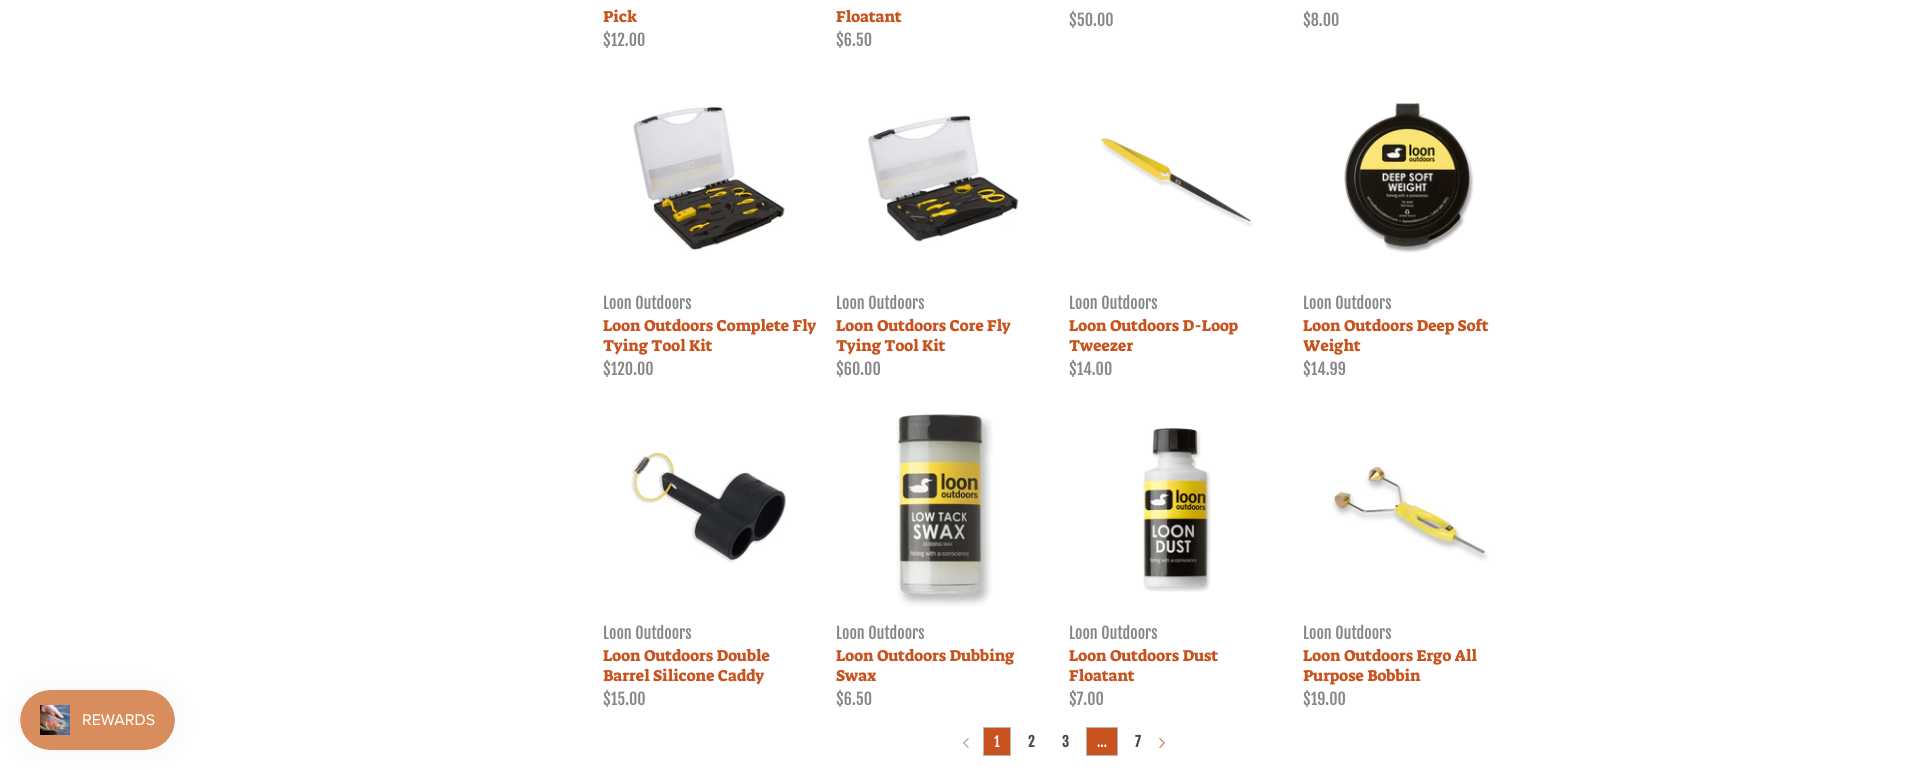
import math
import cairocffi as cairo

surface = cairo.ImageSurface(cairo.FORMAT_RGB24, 1932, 770)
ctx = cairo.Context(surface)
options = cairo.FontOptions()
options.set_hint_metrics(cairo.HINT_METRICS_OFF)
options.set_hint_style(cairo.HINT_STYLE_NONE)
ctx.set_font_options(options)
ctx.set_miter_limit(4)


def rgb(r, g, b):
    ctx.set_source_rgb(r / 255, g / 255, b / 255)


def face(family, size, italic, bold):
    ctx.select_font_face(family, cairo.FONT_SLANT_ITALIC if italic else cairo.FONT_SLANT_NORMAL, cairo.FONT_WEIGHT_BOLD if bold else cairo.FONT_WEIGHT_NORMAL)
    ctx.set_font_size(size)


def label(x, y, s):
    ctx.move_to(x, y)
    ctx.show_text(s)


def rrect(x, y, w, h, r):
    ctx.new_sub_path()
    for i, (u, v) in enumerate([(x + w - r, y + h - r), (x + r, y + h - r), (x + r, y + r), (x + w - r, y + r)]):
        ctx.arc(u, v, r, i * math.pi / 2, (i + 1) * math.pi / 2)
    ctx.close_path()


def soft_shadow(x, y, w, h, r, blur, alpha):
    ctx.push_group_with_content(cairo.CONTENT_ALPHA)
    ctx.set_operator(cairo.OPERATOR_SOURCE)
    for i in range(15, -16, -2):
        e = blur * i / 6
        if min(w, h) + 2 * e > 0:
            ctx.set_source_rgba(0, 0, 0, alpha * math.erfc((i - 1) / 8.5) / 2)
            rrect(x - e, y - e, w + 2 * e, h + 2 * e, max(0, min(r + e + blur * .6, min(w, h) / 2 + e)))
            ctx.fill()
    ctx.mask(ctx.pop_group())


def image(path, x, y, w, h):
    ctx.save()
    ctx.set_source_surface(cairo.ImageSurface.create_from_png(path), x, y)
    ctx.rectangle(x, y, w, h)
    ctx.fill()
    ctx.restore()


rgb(255, 255, 255)
ctx.paint()
rgb(0, 0, 0)
soft_shadow(20, 690, 155, 60, 30, 12.5, 0.05)
image('image0.png', 20, 690, 155, 60)
face('Suez One', 16, 0, 0)
rgb(200, 83, 31)
label(603, 22, 'Pick')
face('Fjalla One', 16, 0, 0)
rgb(134, 135, 132)
label(603, 46, '$12.00')
face('Suez One', 16, 0, 0)
rgb(200, 83, 31)
label(836, 22, 'Floatant')
face('Fjalla One', 16, 0, 0)
rgb(134, 135, 132)
label(836, 46, '$6.50')
label(1069, 26, '$50.00')
label(1303, 26, '$8.00')
image('image1.png', 633, 106, 152, 145)
label(603, 309, 'Loon Outdoors')
face('Suez One', 16, 0, 0)
rgb(200, 83, 31)
label(603, 331, 'Loon Outdoors Complete Fly')
label(603, 351, 'Tying Tool Kit')
face('Fjalla One', 16, 0, 0)
rgb(134, 135, 132)
label(603, 375, '$120.00')
image('image2.png', 867, 115, 152, 127)
label(836, 309, 'Loon Outdoors')
face('Suez One', 16, 0, 0)
rgb(200, 83, 31)
label(836, 331, 'Loon Outdoors Core Fly')
label(836, 351, 'Tying Tool Kit')
face('Fjalla One', 16, 0, 0)
rgb(134, 135, 132)
label(836, 375, '$60.00')
image('image3.png', 1100, 137, 153, 90)
label(1069, 309, 'Loon Outdoors')
face('Suez One', 16, 0, 0)
rgb(200, 83, 31)
label(1069, 331, 'Loon Outdoors D-Loop')
label(1069, 351, 'Tweezer')
face('Fjalla One', 16, 0, 0)
rgb(134, 135, 132)
label(1069, 375, '$14.00')
image('image4.png', 1344, 103, 130, 150)
label(1303, 309, 'Loon Outdoors')
face('Suez One', 16, 0, 0)
rgb(200, 83, 31)
label(1303, 331, 'Loon Outdoors Deep Soft')
label(1303, 351, 'Weight')
face('Fjalla One', 16, 0, 0)
rgb(134, 135, 132)
label(1303, 375, '$14.99')
image('image5.png', 631, 452, 155, 111)
label(603, 639, 'Loon Outdoors')
face('Suez One', 16, 0, 0)
rgb(200, 83, 31)
label(603, 661, 'Loon Outdoors Double')
label(603, 681, 'Barrel Silicone Caddy')
face('Fjalla One', 16, 0, 0)
rgb(134, 135, 132)
label(603, 705, '$15.00')
image('image6.png', 896, 413, 97, 194)
label(836, 639, 'Loon Outdoors')
face('Suez One', 16, 0, 0)
rgb(200, 83, 31)
label(836, 661, 'Loon Outdoors Dubbing')
label(836, 681, 'Swax')
face('Fjalla One', 16, 0, 0)
rgb(134, 135, 132)
label(836, 705, '$6.50')
image('image7.png', 1143, 428, 68, 164)
label(1069, 639, 'Loon Outdoors')
face('Suez One', 16, 0, 0)
rgb(200, 83, 31)
label(1069, 661, 'Loon Outdoors Dust')
label(1069, 681, 'Floatant')
face('Fjalla One', 16, 0, 0)
rgb(134, 135, 132)
label(1069, 705, '$7.00')
image('image8.png', 1330, 465, 159, 96)
label(1303, 639, 'Loon Outdoors')
face('Suez One', 16, 0, 0)
rgb(200, 83, 31)
label(1303, 661, 'Loon Outdoors Ergo All')
label(1303, 681, 'Purpose Bobbin')
face('Fjalla One', 16, 0, 0)
rgb(134, 135, 132)
label(1303, 705, '$19.00')
image('image9.png', 963, 738, 6, 10)
rgb(200, 83, 31)
ctx.rectangle(983.5, 727.5, 27, 28)
ctx.fill_preserve()
rgb(183, 183, 183)
ctx.set_line_width(1)
ctx.stroke()
face('Fjalla One', 14, 0, 0)
rgb(255, 255, 255)
label(994, 747, '1')
face('Fjalla One', 14, 0, 1)
rgb(75, 73, 73)
label(1028, 747, '2')
label(1062, 747, '3')
rgb(200, 83, 31)
ctx.rectangle(1086.5, 727.5, 31, 28)
ctx.fill_preserve()
rgb(183, 183, 183)
ctx.stroke()
face('Fjalla One', 14, 0, 0)
rgb(255, 255, 255)
label(1097, 747, '…')
face('Fjalla One', 14, 0, 1)
rgb(75, 73, 73)
label(1135, 747, '7')
image('image10.png', 1159, 738, 6, 10)
surface.write_to_png('render.png')
